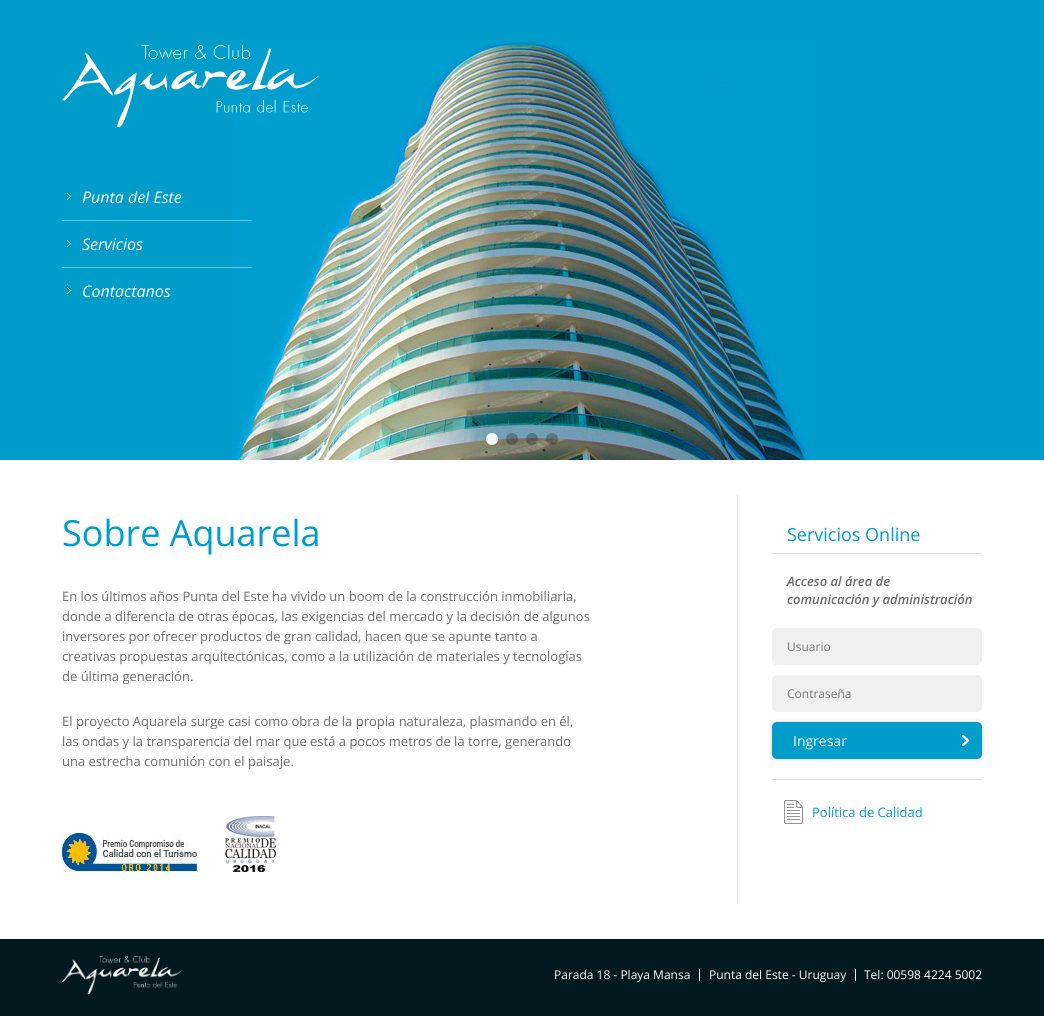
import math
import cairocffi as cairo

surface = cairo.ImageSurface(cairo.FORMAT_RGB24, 1044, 1016)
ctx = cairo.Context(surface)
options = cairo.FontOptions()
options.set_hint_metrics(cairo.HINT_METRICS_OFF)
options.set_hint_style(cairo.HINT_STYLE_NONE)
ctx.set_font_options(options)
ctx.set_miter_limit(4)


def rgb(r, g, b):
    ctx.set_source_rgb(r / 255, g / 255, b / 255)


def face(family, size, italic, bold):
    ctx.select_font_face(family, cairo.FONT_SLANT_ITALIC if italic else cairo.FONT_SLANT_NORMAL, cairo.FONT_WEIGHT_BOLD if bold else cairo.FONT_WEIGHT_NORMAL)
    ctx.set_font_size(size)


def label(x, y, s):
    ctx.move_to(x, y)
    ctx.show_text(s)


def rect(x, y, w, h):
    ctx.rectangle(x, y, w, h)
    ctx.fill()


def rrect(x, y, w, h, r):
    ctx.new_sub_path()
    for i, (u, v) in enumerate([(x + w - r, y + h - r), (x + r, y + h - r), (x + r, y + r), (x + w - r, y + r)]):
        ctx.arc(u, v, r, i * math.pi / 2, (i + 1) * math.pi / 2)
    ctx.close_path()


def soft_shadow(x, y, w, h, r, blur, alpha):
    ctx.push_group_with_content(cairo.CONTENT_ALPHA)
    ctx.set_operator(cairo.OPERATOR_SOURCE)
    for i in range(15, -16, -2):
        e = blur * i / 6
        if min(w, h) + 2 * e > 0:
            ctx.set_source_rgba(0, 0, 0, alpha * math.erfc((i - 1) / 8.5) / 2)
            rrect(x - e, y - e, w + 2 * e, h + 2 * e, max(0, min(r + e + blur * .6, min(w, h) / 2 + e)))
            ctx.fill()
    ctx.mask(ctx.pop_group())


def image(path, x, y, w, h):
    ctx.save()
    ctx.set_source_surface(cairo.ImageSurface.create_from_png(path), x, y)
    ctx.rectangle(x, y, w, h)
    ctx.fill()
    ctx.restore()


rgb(2, 25, 32)
ctx.paint()
rgb(0, 157, 203)
rect(0, 0, 1044, 460)
image('image0.png', 232, 41, 583, 419)
ctx.set_source_rgba(1, 1, 1, 0.9)
ctx.arc(492, 439, 6, 0, 2 * math.pi)
ctx.fill()
ctx.set_source_rgba(0, 0, 0, 0.25)
ctx.arc(512, 439, 6, 0, 2 * math.pi)
ctx.fill()
ctx.arc(532, 439, 6, 0, 2 * math.pi)
ctx.fill()
ctx.arc(552, 439, 6, 0, 2 * math.pi)
ctx.fill()
image('image1.png', 62, 45, 257, 82)
ctx.set_source_rgba(1, 1, 1, 0.4)
rect(62, 220, 190, 1)
image('image2.png', 67, 193, 4, 7)
face('Open Sans', 16, 1, 0)
rgb(255, 255, 255)
label(82, 203, 'Punta del Este')
ctx.set_source_rgba(1, 1, 1, 0.4)
rect(62, 267, 190, 1)
image('image2.png', 67, 240, 4, 7)
rgb(255, 255, 255)
label(82, 250, 'Servicios')
image('image2.png', 67, 287, 4, 7)
label(82, 297, 'Contactanos')
rect(0, 460, 1044, 479)
face('Open Sans', 36, 0, 0)
rgb(0, 157, 203)
label(62, 546, 'Sobre Aquarela')
face('Open Sans', 13, 0, 0)
rgb(107, 107, 107)
label(62, 601, 'En los últimos años Punta del Este ha vivido un boom de la construcción inmobiliaria,')
label(62, 621, 'donde a diferencia de otras épocas, las exigencias del mercado y la decisión de algunos')
label(62, 641, 'inversores por ofrecer productos de gran calidad, hacen que se apunte tanto a')
label(62, 661, 'creativas propuestas arquitectónicas, como a la utilización de materiales y tecnologías')
label(62, 681, 'de última generación.')
label(62, 726, 'El proyecto Aquarela surge casi como obra de la propia naturaleza, plasmando en él,')
label(62, 746, 'las ondas y la transparencia del mar que está a pocos metros de la torre, generando')
label(62, 766, 'una estrecha comunión con el paisaje.')
image('image3.png', 62, 833, 135, 39)
image('image4.png', 225, 816, 51, 56)
rgb(227, 227, 227)
rect(737, 495, 1, 409)
rect(772, 553, 210, 1)
face('Open Sans', 18, 0, 0)
rgb(0, 157, 203)
label(787, 541, 'Servicios Online')
face('Open Sans SemiBold', 13, 1, 0)
rgb(107, 107, 107)
label(787, 586, 'Acceso al área de')
label(787, 604, 'comunicación y administración')
rgb(240, 240, 240)
rrect(772, 628, 210, 37, 5)
ctx.fill()
face('Open Sans', 12, 0, 0)
rgb(117, 117, 117)
label(787, 651, 'Usuario')
rgb(240, 240, 240)
rrect(772, 675, 210, 37, 5)
ctx.fill()
rgb(117, 117, 117)
label(787, 698, 'Contraseña')
rgb(0, 0, 0)
soft_shadow(772, 722, 210, 37, 5, 2, 0.2)
rgb(0, 157, 203)
rrect(772, 722, 210, 37, 5)
ctx.fill()
image('image5.png', 962, 735, 8, 11)
face('Open Sans', 14, 0, 0)
rgb(255, 255, 255)
label(793, 746, 'Ingresar')
rgb(227, 227, 227)
rect(772, 779, 210, 1)
image('image6.png', 784, 800, 19, 24)
face('Open Sans', 13, 0, 0)
rgb(0, 157, 203)
label(812, 817, 'Política de Calidad')
image('image7.png', 62, 956, 120, 38)
rgb(255, 255, 255)
rect(699, 969, 1, 12)
face('Open Sans', 12, 0, 0)
label(554, 979, 'Parada 18 - Playa Mansa')
rect(855, 969, 1, 12)
label(709, 979, 'Punta del Este - Uruguay')
label(864, 979, 'Tel: 00598 4224 5002')
surface.write_to_png('render.png')
